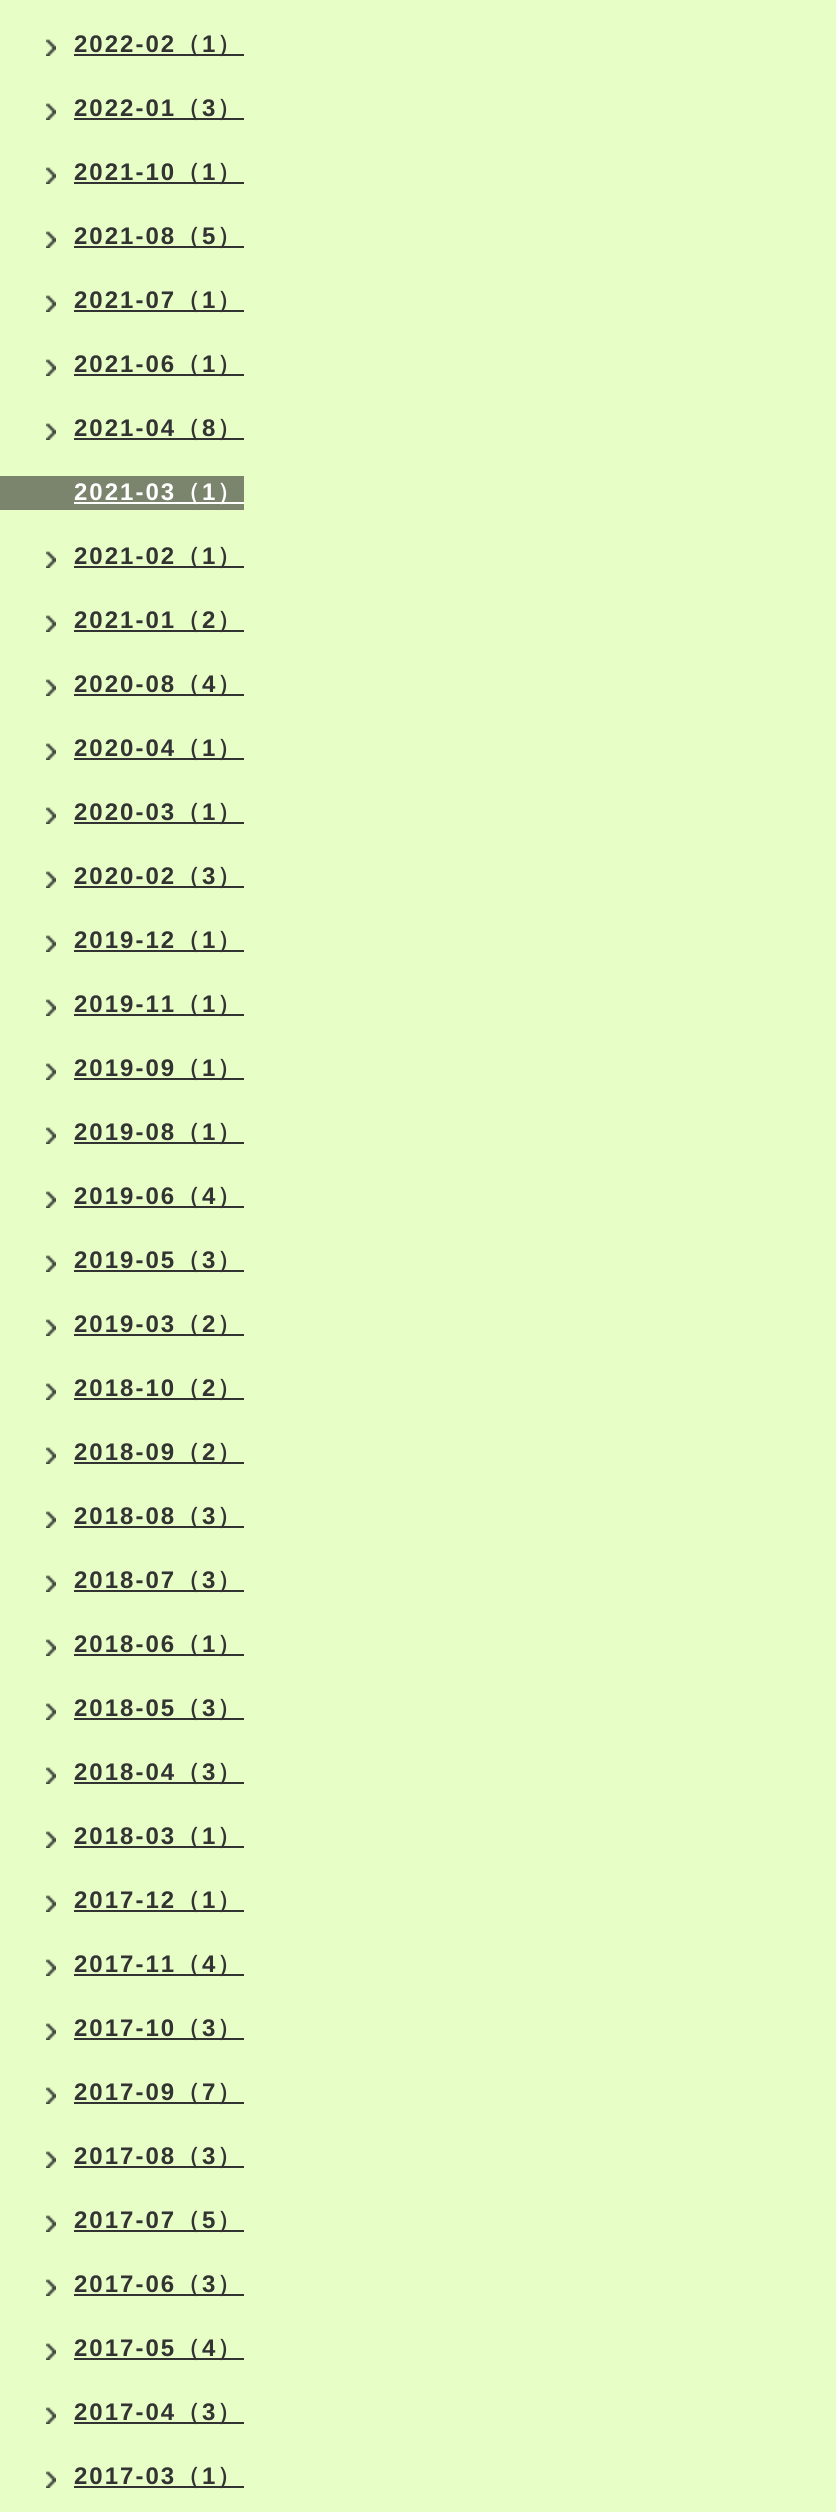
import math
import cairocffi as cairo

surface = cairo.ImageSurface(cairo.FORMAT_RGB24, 836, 2512)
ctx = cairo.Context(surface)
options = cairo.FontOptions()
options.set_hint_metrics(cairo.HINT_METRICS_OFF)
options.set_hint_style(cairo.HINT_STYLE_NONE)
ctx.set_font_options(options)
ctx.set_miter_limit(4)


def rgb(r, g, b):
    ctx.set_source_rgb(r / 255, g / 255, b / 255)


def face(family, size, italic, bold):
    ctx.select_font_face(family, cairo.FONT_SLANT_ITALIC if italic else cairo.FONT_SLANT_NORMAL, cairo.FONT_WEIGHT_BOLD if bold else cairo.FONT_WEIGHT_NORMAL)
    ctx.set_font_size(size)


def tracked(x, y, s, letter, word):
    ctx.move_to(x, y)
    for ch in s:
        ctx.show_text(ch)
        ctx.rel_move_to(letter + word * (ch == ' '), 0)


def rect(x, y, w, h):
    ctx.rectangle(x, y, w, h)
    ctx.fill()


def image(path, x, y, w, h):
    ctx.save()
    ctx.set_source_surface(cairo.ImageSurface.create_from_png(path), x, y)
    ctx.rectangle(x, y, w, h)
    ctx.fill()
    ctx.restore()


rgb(231, 255, 198)
ctx.paint()
image('image0.png', 46, 39, 10, 17)
face('Liberation Sans', 24, 0, 1)
rgb(51, 51, 51)
tracked(74, 52, '2022-02', 2, 0)
rect(74, 54, 170, 2)
face('WenQuanYi Zen Hei', 24, 0, 1)
tracked(176, 52, '（', 2, 0)
face('Liberation Sans', 24, 0, 1)
tracked(202, 52, '1', 2, 0)
face('WenQuanYi Zen Hei', 24, 0, 1)
tracked(217, 52, '）', 2, 0)
image('image0.png', 46, 103, 10, 17)
face('Liberation Sans', 24, 0, 1)
tracked(74, 116, '2022-01', 2, 0)
rect(74, 118, 170, 2)
face('WenQuanYi Zen Hei', 24, 0, 1)
tracked(176, 116, '（', 2, 0)
face('Liberation Sans', 24, 0, 1)
tracked(202, 116, '3', 2, 0)
face('WenQuanYi Zen Hei', 24, 0, 1)
tracked(217, 116, '）', 2, 0)
image('image0.png', 46, 167, 10, 17)
face('Liberation Sans', 24, 0, 1)
tracked(74, 180, '2021-10', 2, 0)
rect(74, 182, 170, 2)
face('WenQuanYi Zen Hei', 24, 0, 1)
tracked(176, 180, '（', 2, 0)
face('Liberation Sans', 24, 0, 1)
tracked(202, 180, '1', 2, 0)
face('WenQuanYi Zen Hei', 24, 0, 1)
tracked(217, 180, '）', 2, 0)
image('image0.png', 46, 231, 10, 17)
face('Liberation Sans', 24, 0, 1)
tracked(74, 244, '2021-08', 2, 0)
rect(74, 246, 170, 2)
face('WenQuanYi Zen Hei', 24, 0, 1)
tracked(176, 244, '（', 2, 0)
face('Liberation Sans', 24, 0, 1)
tracked(202, 244, '5', 2, 0)
face('WenQuanYi Zen Hei', 24, 0, 1)
tracked(217, 244, '）', 2, 0)
image('image0.png', 46, 295, 10, 17)
face('Liberation Sans', 24, 0, 1)
tracked(74, 308, '2021-07', 2, 0)
rect(74, 310, 170, 2)
face('WenQuanYi Zen Hei', 24, 0, 1)
tracked(176, 308, '（', 2, 0)
face('Liberation Sans', 24, 0, 1)
tracked(202, 308, '1', 2, 0)
face('WenQuanYi Zen Hei', 24, 0, 1)
tracked(217, 308, '）', 2, 0)
image('image0.png', 46, 359, 10, 17)
face('Liberation Sans', 24, 0, 1)
tracked(74, 372, '2021-06', 2, 0)
rect(74, 374, 170, 2)
face('WenQuanYi Zen Hei', 24, 0, 1)
tracked(176, 372, '（', 2, 0)
face('Liberation Sans', 24, 0, 1)
tracked(202, 372, '1', 2, 0)
face('WenQuanYi Zen Hei', 24, 0, 1)
tracked(217, 372, '）', 2, 0)
image('image0.png', 46, 423, 10, 17)
face('Liberation Sans', 24, 0, 1)
tracked(74, 436, '2021-04', 2, 0)
rect(74, 438, 170, 2)
face('WenQuanYi Zen Hei', 24, 0, 1)
tracked(176, 436, '（', 2, 0)
face('Liberation Sans', 24, 0, 1)
tracked(202, 436, '8', 2, 0)
face('WenQuanYi Zen Hei', 24, 0, 1)
tracked(217, 436, '）', 2, 0)
rgb(123, 133, 110)
rect(0, 476, 244, 34)
face('Liberation Sans', 24, 0, 1)
rgb(255, 255, 255)
tracked(74, 500, '2021-03', 2, 0)
rect(74, 502, 170, 2)
face('WenQuanYi Zen Hei', 24, 0, 1)
tracked(176, 500, '（', 2, 0)
face('Liberation Sans', 24, 0, 1)
tracked(202, 500, '1', 2, 0)
face('WenQuanYi Zen Hei', 24, 0, 1)
tracked(217, 500, '）', 2, 0)
image('image0.png', 46, 551, 10, 17)
face('Liberation Sans', 24, 0, 1)
rgb(51, 51, 51)
tracked(74, 564, '2021-02', 2, 0)
rect(74, 566, 170, 2)
face('WenQuanYi Zen Hei', 24, 0, 1)
tracked(176, 564, '（', 2, 0)
face('Liberation Sans', 24, 0, 1)
tracked(202, 564, '1', 2, 0)
face('WenQuanYi Zen Hei', 24, 0, 1)
tracked(217, 564, '）', 2, 0)
image('image0.png', 46, 615, 10, 17)
face('Liberation Sans', 24, 0, 1)
tracked(74, 628, '2021-01', 2, 0)
rect(74, 630, 170, 2)
face('WenQuanYi Zen Hei', 24, 0, 1)
tracked(176, 628, '（', 2, 0)
face('Liberation Sans', 24, 0, 1)
tracked(202, 628, '2', 2, 0)
face('WenQuanYi Zen Hei', 24, 0, 1)
tracked(217, 628, '）', 2, 0)
image('image0.png', 46, 679, 10, 17)
face('Liberation Sans', 24, 0, 1)
tracked(74, 692, '2020-08', 2, 0)
rect(74, 694, 170, 2)
face('WenQuanYi Zen Hei', 24, 0, 1)
tracked(176, 692, '（', 2, 0)
face('Liberation Sans', 24, 0, 1)
tracked(202, 692, '4', 2, 0)
face('WenQuanYi Zen Hei', 24, 0, 1)
tracked(217, 692, '）', 2, 0)
image('image0.png', 46, 743, 10, 17)
face('Liberation Sans', 24, 0, 1)
tracked(74, 756, '2020-04', 2, 0)
rect(74, 758, 170, 2)
face('WenQuanYi Zen Hei', 24, 0, 1)
tracked(176, 756, '（', 2, 0)
face('Liberation Sans', 24, 0, 1)
tracked(202, 756, '1', 2, 0)
face('WenQuanYi Zen Hei', 24, 0, 1)
tracked(217, 756, '）', 2, 0)
image('image0.png', 46, 807, 10, 17)
face('Liberation Sans', 24, 0, 1)
tracked(74, 820, '2020-03', 2, 0)
rect(74, 822, 170, 2)
face('WenQuanYi Zen Hei', 24, 0, 1)
tracked(176, 820, '（', 2, 0)
face('Liberation Sans', 24, 0, 1)
tracked(202, 820, '1', 2, 0)
face('WenQuanYi Zen Hei', 24, 0, 1)
tracked(217, 820, '）', 2, 0)
image('image0.png', 46, 871, 10, 17)
face('Liberation Sans', 24, 0, 1)
tracked(74, 884, '2020-02', 2, 0)
rect(74, 886, 170, 2)
face('WenQuanYi Zen Hei', 24, 0, 1)
tracked(176, 884, '（', 2, 0)
face('Liberation Sans', 24, 0, 1)
tracked(202, 884, '3', 2, 0)
face('WenQuanYi Zen Hei', 24, 0, 1)
tracked(217, 884, '）', 2, 0)
image('image0.png', 46, 935, 10, 17)
face('Liberation Sans', 24, 0, 1)
tracked(74, 948, '2019-12', 2, 0)
rect(74, 950, 170, 2)
face('WenQuanYi Zen Hei', 24, 0, 1)
tracked(176, 948, '（', 2, 0)
face('Liberation Sans', 24, 0, 1)
tracked(202, 948, '1', 2, 0)
face('WenQuanYi Zen Hei', 24, 0, 1)
tracked(217, 948, '）', 2, 0)
image('image0.png', 46, 999, 10, 17)
face('Liberation Sans', 24, 0, 1)
tracked(74, 1012, '2019-11', 2, 0)
rect(74, 1014, 170, 2)
face('WenQuanYi Zen Hei', 24, 0, 1)
tracked(176, 1012, '（', 2, 0)
face('Liberation Sans', 24, 0, 1)
tracked(202, 1012, '1', 2, 0)
face('WenQuanYi Zen Hei', 24, 0, 1)
tracked(217, 1012, '）', 2, 0)
image('image0.png', 46, 1063, 10, 17)
face('Liberation Sans', 24, 0, 1)
tracked(74, 1076, '2019-09', 2, 0)
rect(74, 1078, 170, 2)
face('WenQuanYi Zen Hei', 24, 0, 1)
tracked(176, 1076, '（', 2, 0)
face('Liberation Sans', 24, 0, 1)
tracked(202, 1076, '1', 2, 0)
face('WenQuanYi Zen Hei', 24, 0, 1)
tracked(217, 1076, '）', 2, 0)
image('image0.png', 46, 1127, 10, 17)
face('Liberation Sans', 24, 0, 1)
tracked(74, 1140, '2019-08', 2, 0)
rect(74, 1142, 170, 2)
face('WenQuanYi Zen Hei', 24, 0, 1)
tracked(176, 1140, '（', 2, 0)
face('Liberation Sans', 24, 0, 1)
tracked(202, 1140, '1', 2, 0)
face('WenQuanYi Zen Hei', 24, 0, 1)
tracked(217, 1140, '）', 2, 0)
image('image0.png', 46, 1191, 10, 17)
face('Liberation Sans', 24, 0, 1)
tracked(74, 1204, '2019-06', 2, 0)
rect(74, 1206, 170, 2)
face('WenQuanYi Zen Hei', 24, 0, 1)
tracked(176, 1204, '（', 2, 0)
face('Liberation Sans', 24, 0, 1)
tracked(202, 1204, '4', 2, 0)
face('WenQuanYi Zen Hei', 24, 0, 1)
tracked(217, 1204, '）', 2, 0)
image('image0.png', 46, 1255, 10, 17)
face('Liberation Sans', 24, 0, 1)
tracked(74, 1268, '2019-05', 2, 0)
rect(74, 1270, 170, 2)
face('WenQuanYi Zen Hei', 24, 0, 1)
tracked(176, 1268, '（', 2, 0)
face('Liberation Sans', 24, 0, 1)
tracked(202, 1268, '3', 2, 0)
face('WenQuanYi Zen Hei', 24, 0, 1)
tracked(217, 1268, '）', 2, 0)
image('image0.png', 46, 1319, 10, 17)
face('Liberation Sans', 24, 0, 1)
tracked(74, 1332, '2019-03', 2, 0)
rect(74, 1334, 170, 2)
face('WenQuanYi Zen Hei', 24, 0, 1)
tracked(176, 1332, '（', 2, 0)
face('Liberation Sans', 24, 0, 1)
tracked(202, 1332, '2', 2, 0)
face('WenQuanYi Zen Hei', 24, 0, 1)
tracked(217, 1332, '）', 2, 0)
image('image0.png', 46, 1383, 10, 17)
face('Liberation Sans', 24, 0, 1)
tracked(74, 1396, '2018-10', 2, 0)
rect(74, 1398, 170, 2)
face('WenQuanYi Zen Hei', 24, 0, 1)
tracked(176, 1396, '（', 2, 0)
face('Liberation Sans', 24, 0, 1)
tracked(202, 1396, '2', 2, 0)
face('WenQuanYi Zen Hei', 24, 0, 1)
tracked(217, 1396, '）', 2, 0)
image('image0.png', 46, 1447, 10, 17)
face('Liberation Sans', 24, 0, 1)
tracked(74, 1460, '2018-09', 2, 0)
rect(74, 1462, 170, 2)
face('WenQuanYi Zen Hei', 24, 0, 1)
tracked(176, 1460, '（', 2, 0)
face('Liberation Sans', 24, 0, 1)
tracked(202, 1460, '2', 2, 0)
face('WenQuanYi Zen Hei', 24, 0, 1)
tracked(217, 1460, '）', 2, 0)
image('image0.png', 46, 1511, 10, 17)
face('Liberation Sans', 24, 0, 1)
tracked(74, 1524, '2018-08', 2, 0)
rect(74, 1526, 170, 2)
face('WenQuanYi Zen Hei', 24, 0, 1)
tracked(176, 1524, '（', 2, 0)
face('Liberation Sans', 24, 0, 1)
tracked(202, 1524, '3', 2, 0)
face('WenQuanYi Zen Hei', 24, 0, 1)
tracked(217, 1524, '）', 2, 0)
image('image0.png', 46, 1575, 10, 17)
face('Liberation Sans', 24, 0, 1)
tracked(74, 1588, '2018-07', 2, 0)
rect(74, 1590, 170, 2)
face('WenQuanYi Zen Hei', 24, 0, 1)
tracked(176, 1588, '（', 2, 0)
face('Liberation Sans', 24, 0, 1)
tracked(202, 1588, '3', 2, 0)
face('WenQuanYi Zen Hei', 24, 0, 1)
tracked(217, 1588, '）', 2, 0)
image('image0.png', 46, 1639, 10, 17)
face('Liberation Sans', 24, 0, 1)
tracked(74, 1652, '2018-06', 2, 0)
rect(74, 1654, 170, 2)
face('WenQuanYi Zen Hei', 24, 0, 1)
tracked(176, 1652, '（', 2, 0)
face('Liberation Sans', 24, 0, 1)
tracked(202, 1652, '1', 2, 0)
face('WenQuanYi Zen Hei', 24, 0, 1)
tracked(217, 1652, '）', 2, 0)
image('image0.png', 46, 1703, 10, 17)
face('Liberation Sans', 24, 0, 1)
tracked(74, 1716, '2018-05', 2, 0)
rect(74, 1718, 170, 2)
face('WenQuanYi Zen Hei', 24, 0, 1)
tracked(176, 1716, '（', 2, 0)
face('Liberation Sans', 24, 0, 1)
tracked(202, 1716, '3', 2, 0)
face('WenQuanYi Zen Hei', 24, 0, 1)
tracked(217, 1716, '）', 2, 0)
image('image0.png', 46, 1767, 10, 17)
face('Liberation Sans', 24, 0, 1)
tracked(74, 1780, '2018-04', 2, 0)
rect(74, 1782, 170, 2)
face('WenQuanYi Zen Hei', 24, 0, 1)
tracked(176, 1780, '（', 2, 0)
face('Liberation Sans', 24, 0, 1)
tracked(202, 1780, '3', 2, 0)
face('WenQuanYi Zen Hei', 24, 0, 1)
tracked(217, 1780, '）', 2, 0)
image('image0.png', 46, 1831, 10, 17)
face('Liberation Sans', 24, 0, 1)
tracked(74, 1844, '2018-03', 2, 0)
rect(74, 1846, 170, 2)
face('WenQuanYi Zen Hei', 24, 0, 1)
tracked(176, 1844, '（', 2, 0)
face('Liberation Sans', 24, 0, 1)
tracked(202, 1844, '1', 2, 0)
face('WenQuanYi Zen Hei', 24, 0, 1)
tracked(217, 1844, '）', 2, 0)
image('image0.png', 46, 1895, 10, 17)
face('Liberation Sans', 24, 0, 1)
tracked(74, 1908, '2017-12', 2, 0)
rect(74, 1910, 170, 2)
face('WenQuanYi Zen Hei', 24, 0, 1)
tracked(176, 1908, '（', 2, 0)
face('Liberation Sans', 24, 0, 1)
tracked(202, 1908, '1', 2, 0)
face('WenQuanYi Zen Hei', 24, 0, 1)
tracked(217, 1908, '）', 2, 0)
image('image0.png', 46, 1959, 10, 17)
face('Liberation Sans', 24, 0, 1)
tracked(74, 1972, '2017-11', 2, 0)
rect(74, 1974, 170, 2)
face('WenQuanYi Zen Hei', 24, 0, 1)
tracked(176, 1972, '（', 2, 0)
face('Liberation Sans', 24, 0, 1)
tracked(202, 1972, '4', 2, 0)
face('WenQuanYi Zen Hei', 24, 0, 1)
tracked(217, 1972, '）', 2, 0)
image('image0.png', 46, 2023, 10, 17)
face('Liberation Sans', 24, 0, 1)
tracked(74, 2036, '2017-10', 2, 0)
rect(74, 2038, 170, 2)
face('WenQuanYi Zen Hei', 24, 0, 1)
tracked(176, 2036, '（', 2, 0)
face('Liberation Sans', 24, 0, 1)
tracked(202, 2036, '3', 2, 0)
face('WenQuanYi Zen Hei', 24, 0, 1)
tracked(217, 2036, '）', 2, 0)
image('image0.png', 46, 2087, 10, 17)
face('Liberation Sans', 24, 0, 1)
tracked(74, 2100, '2017-09', 2, 0)
rect(74, 2102, 170, 2)
face('WenQuanYi Zen Hei', 24, 0, 1)
tracked(176, 2100, '（', 2, 0)
face('Liberation Sans', 24, 0, 1)
tracked(202, 2100, '7', 2, 0)
face('WenQuanYi Zen Hei', 24, 0, 1)
tracked(217, 2100, '）', 2, 0)
image('image0.png', 46, 2151, 10, 17)
face('Liberation Sans', 24, 0, 1)
tracked(74, 2164, '2017-08', 2, 0)
rect(74, 2166, 170, 2)
face('WenQuanYi Zen Hei', 24, 0, 1)
tracked(176, 2164, '（', 2, 0)
face('Liberation Sans', 24, 0, 1)
tracked(202, 2164, '3', 2, 0)
face('WenQuanYi Zen Hei', 24, 0, 1)
tracked(217, 2164, '）', 2, 0)
image('image0.png', 46, 2215, 10, 17)
face('Liberation Sans', 24, 0, 1)
tracked(74, 2228, '2017-07', 2, 0)
rect(74, 2230, 170, 2)
face('WenQuanYi Zen Hei', 24, 0, 1)
tracked(176, 2228, '（', 2, 0)
face('Liberation Sans', 24, 0, 1)
tracked(202, 2228, '5', 2, 0)
face('WenQuanYi Zen Hei', 24, 0, 1)
tracked(217, 2228, '）', 2, 0)
image('image0.png', 46, 2279, 10, 17)
face('Liberation Sans', 24, 0, 1)
tracked(74, 2292, '2017-06', 2, 0)
rect(74, 2294, 170, 2)
face('WenQuanYi Zen Hei', 24, 0, 1)
tracked(176, 2292, '（', 2, 0)
face('Liberation Sans', 24, 0, 1)
tracked(202, 2292, '3', 2, 0)
face('WenQuanYi Zen Hei', 24, 0, 1)
tracked(217, 2292, '）', 2, 0)
image('image0.png', 46, 2343, 10, 17)
face('Liberation Sans', 24, 0, 1)
tracked(74, 2356, '2017-05', 2, 0)
rect(74, 2358, 170, 2)
face('WenQuanYi Zen Hei', 24, 0, 1)
tracked(176, 2356, '（', 2, 0)
face('Liberation Sans', 24, 0, 1)
tracked(202, 2356, '4', 2, 0)
face('WenQuanYi Zen Hei', 24, 0, 1)
tracked(217, 2356, '）', 2, 0)
image('image0.png', 46, 2407, 10, 17)
face('Liberation Sans', 24, 0, 1)
tracked(74, 2420, '2017-04', 2, 0)
rect(74, 2422, 170, 2)
face('WenQuanYi Zen Hei', 24, 0, 1)
tracked(176, 2420, '（', 2, 0)
face('Liberation Sans', 24, 0, 1)
tracked(202, 2420, '3', 2, 0)
face('WenQuanYi Zen Hei', 24, 0, 1)
tracked(217, 2420, '）', 2, 0)
image('image0.png', 46, 2471, 10, 17)
face('Liberation Sans', 24, 0, 1)
tracked(74, 2484, '2017-03', 2, 0)
rect(74, 2486, 170, 2)
face('WenQuanYi Zen Hei', 24, 0, 1)
tracked(176, 2484, '（', 2, 0)
face('Liberation Sans', 24, 0, 1)
tracked(202, 2484, '1', 2, 0)
face('WenQuanYi Zen Hei', 24, 0, 1)
tracked(217, 2484, '）', 2, 0)
surface.write_to_png('render.png')
